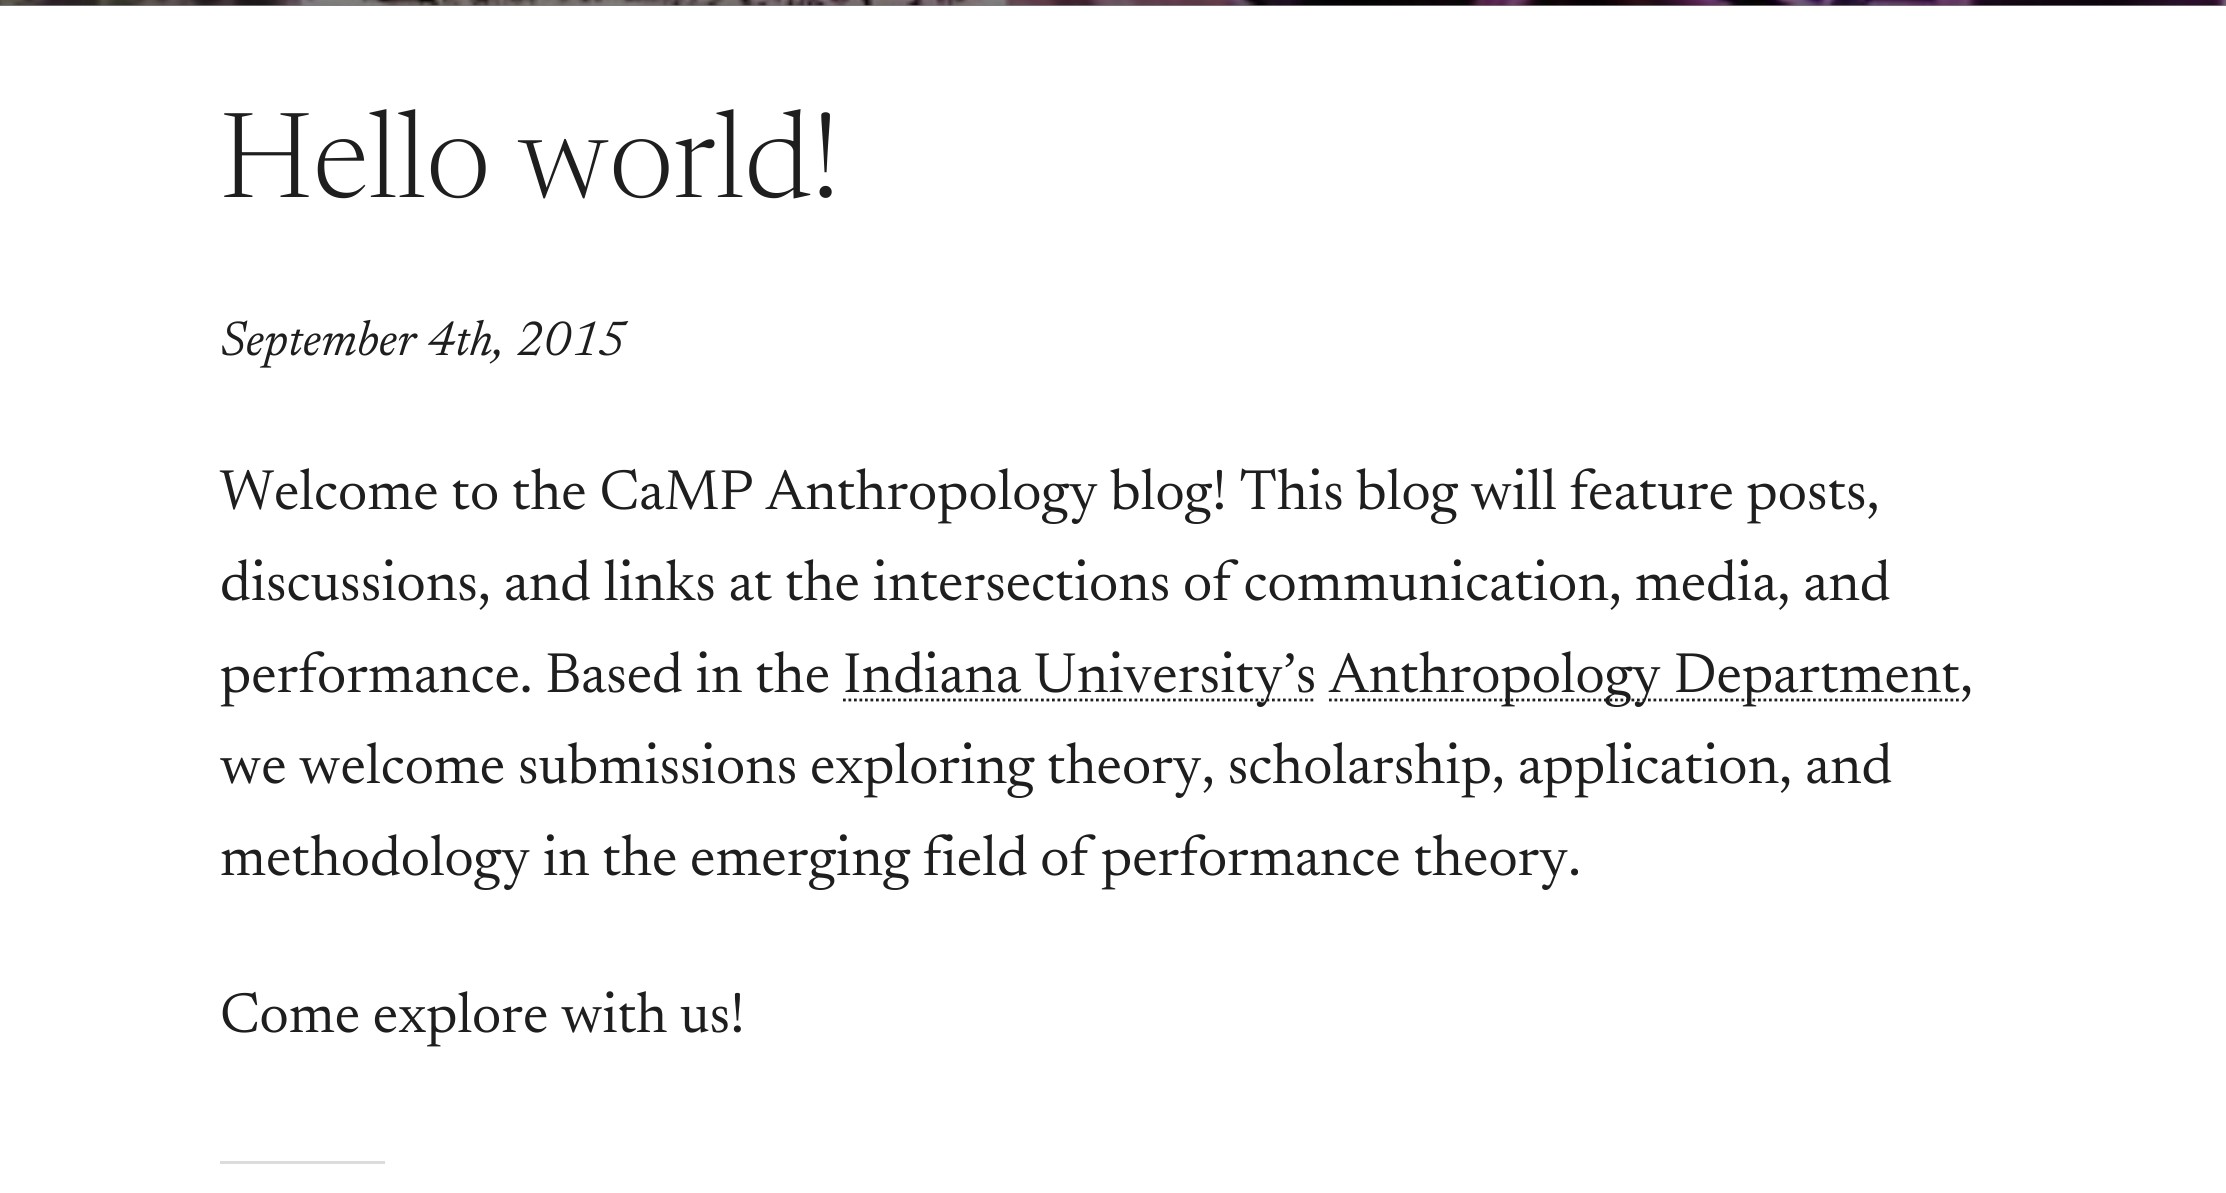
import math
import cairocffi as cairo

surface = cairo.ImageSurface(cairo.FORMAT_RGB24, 2226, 1193)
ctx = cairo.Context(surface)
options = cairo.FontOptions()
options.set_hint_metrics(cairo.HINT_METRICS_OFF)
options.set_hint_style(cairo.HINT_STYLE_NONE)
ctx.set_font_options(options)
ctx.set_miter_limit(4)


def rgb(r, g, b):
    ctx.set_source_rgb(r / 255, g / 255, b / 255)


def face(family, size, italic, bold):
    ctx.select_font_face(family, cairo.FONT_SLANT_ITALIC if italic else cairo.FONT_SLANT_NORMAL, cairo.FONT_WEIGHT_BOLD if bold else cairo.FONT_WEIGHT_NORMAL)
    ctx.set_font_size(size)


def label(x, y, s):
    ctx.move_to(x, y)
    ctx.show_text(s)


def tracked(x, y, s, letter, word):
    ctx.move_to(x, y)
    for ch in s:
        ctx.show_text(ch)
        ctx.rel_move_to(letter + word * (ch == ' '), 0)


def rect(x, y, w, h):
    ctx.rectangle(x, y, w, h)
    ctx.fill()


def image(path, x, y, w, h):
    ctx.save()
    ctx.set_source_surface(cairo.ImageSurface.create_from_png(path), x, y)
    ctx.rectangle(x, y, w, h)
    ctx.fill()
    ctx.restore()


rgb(255, 255, 255)
ctx.paint()
rgb(128, 128, 128)
rect(0, 5, 2226, 1)
image('image0.png', 0, 0, 2226, 6)
face('Newsreader Light', 121, 0, 0)
rgb(30, 30, 30)
label(220, 197, 'Hello world!')
face('Newsreader', 49.5, 1, 0)
tracked(220, 355, 'September 4th, 2015', 0, 1)
face('Newsreader', 57.2, 0, 0)
label(220, 509, 'Welcome to the CaMP Anthropology blog! This blog will feature posts,')
label(220, 600, 'discussions, and links at the intersections of communication, media, and')
label(220, 692, 'performance. Based in the')
ctx.new_path()
ctx.move_to(843, 700)
ctx.line_to(1316, 700)
ctx.set_line_width(2.8)
ctx.set_dash([2.75, 2.75])
ctx.stroke()
label(843, 692, 'Indiana University’s')
ctx.new_path()
ctx.move_to(1329, 700)
ctx.line_to(1959.5, 700)
ctx.stroke()
label(1329, 692, 'Anthropology Department,')
label(220, 783, 'we welcome submissions exploring theory, scholarship, application, and')
label(220, 875, 'methodology in the emerging field of performance theory.')
label(220, 1032, 'Come explore with us!')
rgb(220, 220, 222)
rect(220, 1161, 165, 3)
surface.write_to_png('render.png')
